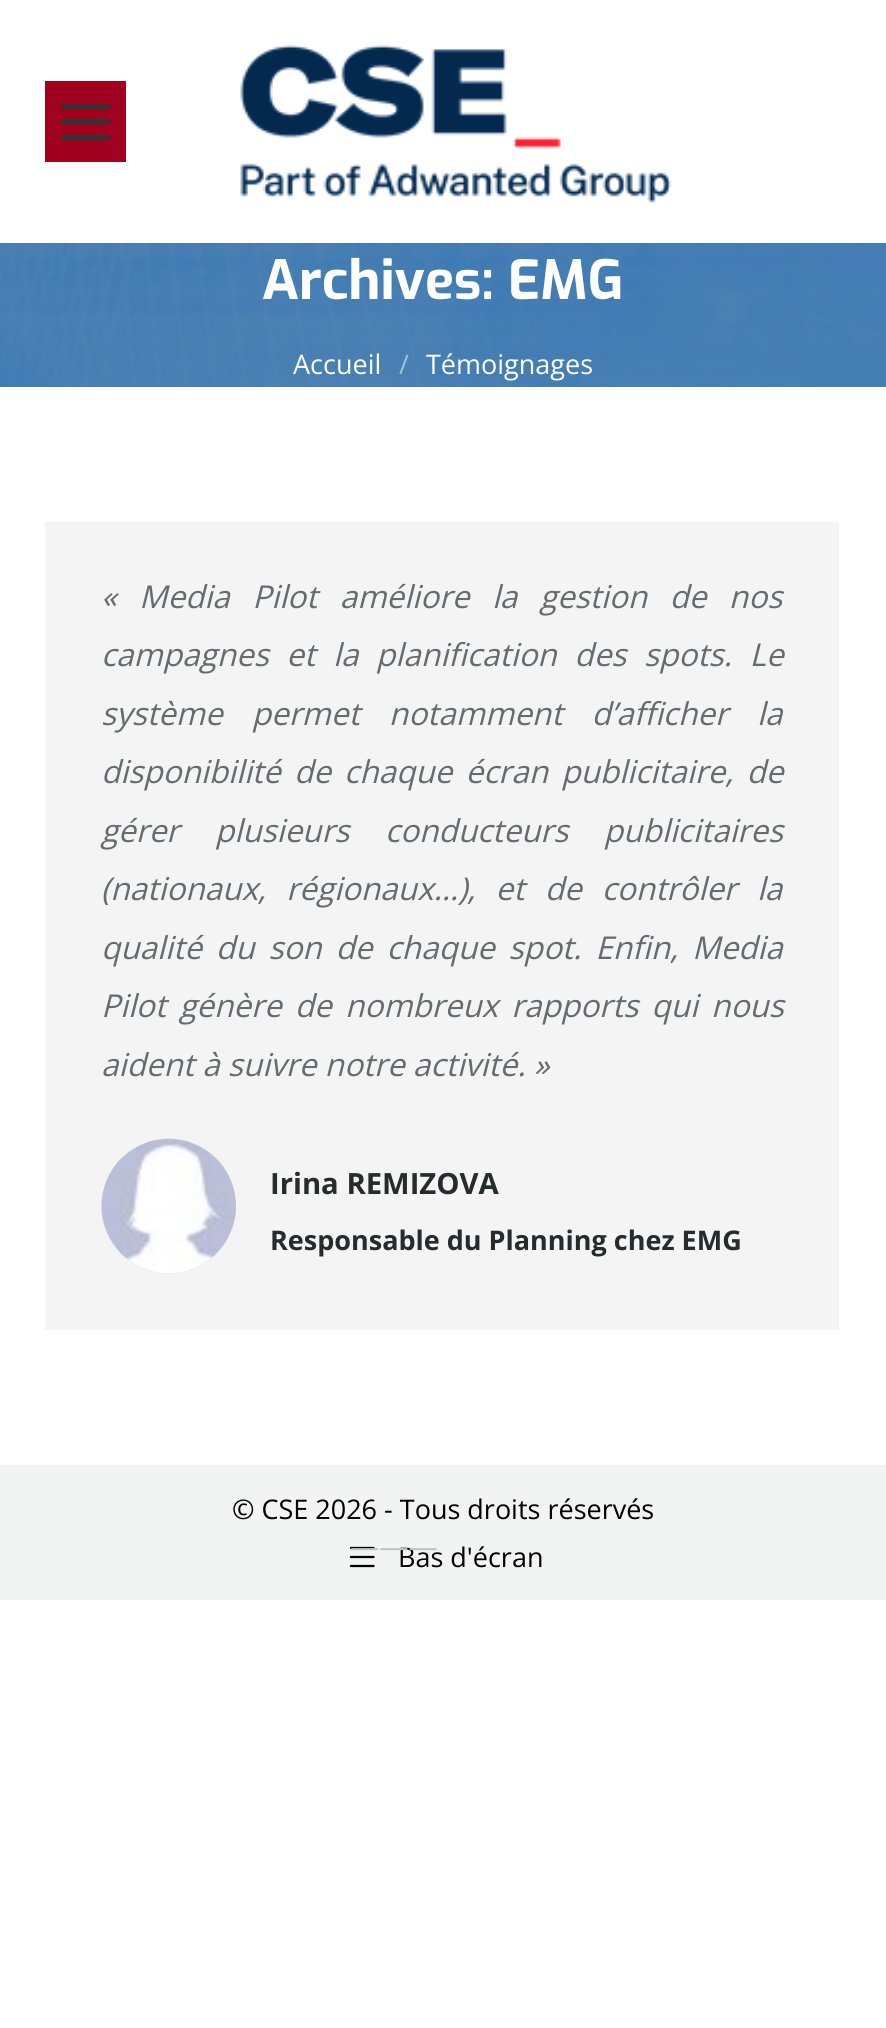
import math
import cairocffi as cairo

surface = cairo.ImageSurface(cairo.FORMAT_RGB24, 886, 2028)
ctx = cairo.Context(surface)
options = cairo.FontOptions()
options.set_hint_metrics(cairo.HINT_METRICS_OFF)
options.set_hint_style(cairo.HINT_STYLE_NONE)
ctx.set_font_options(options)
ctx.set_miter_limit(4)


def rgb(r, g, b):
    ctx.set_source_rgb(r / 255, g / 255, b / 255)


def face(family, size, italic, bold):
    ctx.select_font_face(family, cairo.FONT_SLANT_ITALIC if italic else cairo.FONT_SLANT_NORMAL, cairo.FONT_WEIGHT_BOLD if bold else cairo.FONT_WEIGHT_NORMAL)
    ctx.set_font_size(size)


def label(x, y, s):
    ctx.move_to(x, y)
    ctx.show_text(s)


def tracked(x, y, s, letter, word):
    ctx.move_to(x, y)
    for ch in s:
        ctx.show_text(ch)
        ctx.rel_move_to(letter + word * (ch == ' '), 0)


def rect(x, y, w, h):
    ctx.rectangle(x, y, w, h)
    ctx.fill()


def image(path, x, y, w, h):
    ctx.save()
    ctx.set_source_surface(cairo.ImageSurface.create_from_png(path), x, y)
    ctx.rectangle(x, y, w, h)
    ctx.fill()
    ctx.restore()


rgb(255, 255, 255)
ctx.paint()
rgb(160, 1, 31)
rect(45, 81, 81, 81)
rgb(51, 51, 51)
rect(61, 104, 49, 5)
rect(61, 119, 49, 5)
rect(61, 135, 49, 5)
image('image0.png', 240, 44, 431, 159)
image('image1.png', 0, 243, 886, 144)
face('Exo', 54, 0, 1)
rgb(255, 255, 255)
label(262, 299, 'Archives: EMG')
face('Open Sans', 27, 0, 0)
label(293, 374, 'Accueil')
rgb(164, 191, 217)
label(399, 374, '/')
rgb(255, 255, 255)
label(426, 374, 'Témoignages')
rgb(244, 244, 244)
rect(45, 522, 794, 808)
face('Open Sans', 31.5, 1, 0)
rgb(103, 107, 109)
tracked(101, 608, '« Media Pilot améliore la gestion de nos', 0, 14.25)
tracked(101, 666, 'campagnes et la planification des spots. Le', 0, 9.5)
tracked(101, 725, 'système permet notamment d’afficher la', 0, 21)
tracked(101, 783, 'disponibilité de chaque écran publicitaire, de', 0, 5)
tracked(101, 842, 'gérer plusieurs conducteurs publicitaires', 0, 27.5)
tracked(101, 900, '(nationaux, régionaux…), et de contrôler la', 0, 12)
tracked(101, 959, 'qualité du son de chaque spot. Enfin, Media', 0, 5.75)
tracked(101, 1017, 'Pilot génère de nombreux rapports qui nous', 0, 5)
label(101, 1076, 'aident à suivre notre activité. »')
rgb(237, 237, 237)
ctx.new_path()
ctx.arc(168.5, 1206.5, 67.5, 0, 2 * math.pi)
ctx.fill()
image('image2.png', 101, 1138, 135, 136)
face('Open Sans', 29.25, 0, 1)
rgb(38, 43, 46)
label(270, 1194, 'Irina REMIZOVA')
face('Open Sans', 27, 0, 1)
label(270, 1250, 'Responsable du Planning chez EMG')
rgb(242, 243, 243)
rect(0, 1465, 886, 135)
face('Open Sans', 27, 0, 0)
rgb(0, 0, 0)
label(232, 1519, '© CSE 2026 - Tous droits réservés')
image('image3.png', 349, 1546, 26, 22)
label(398, 1567, 'Bas d\'écran')
face('Open Sans', 29.25, 0, 0)
rgb(194, 195, 195)
label(350, 1557, '———')
surface.write_to_png('render.png')
